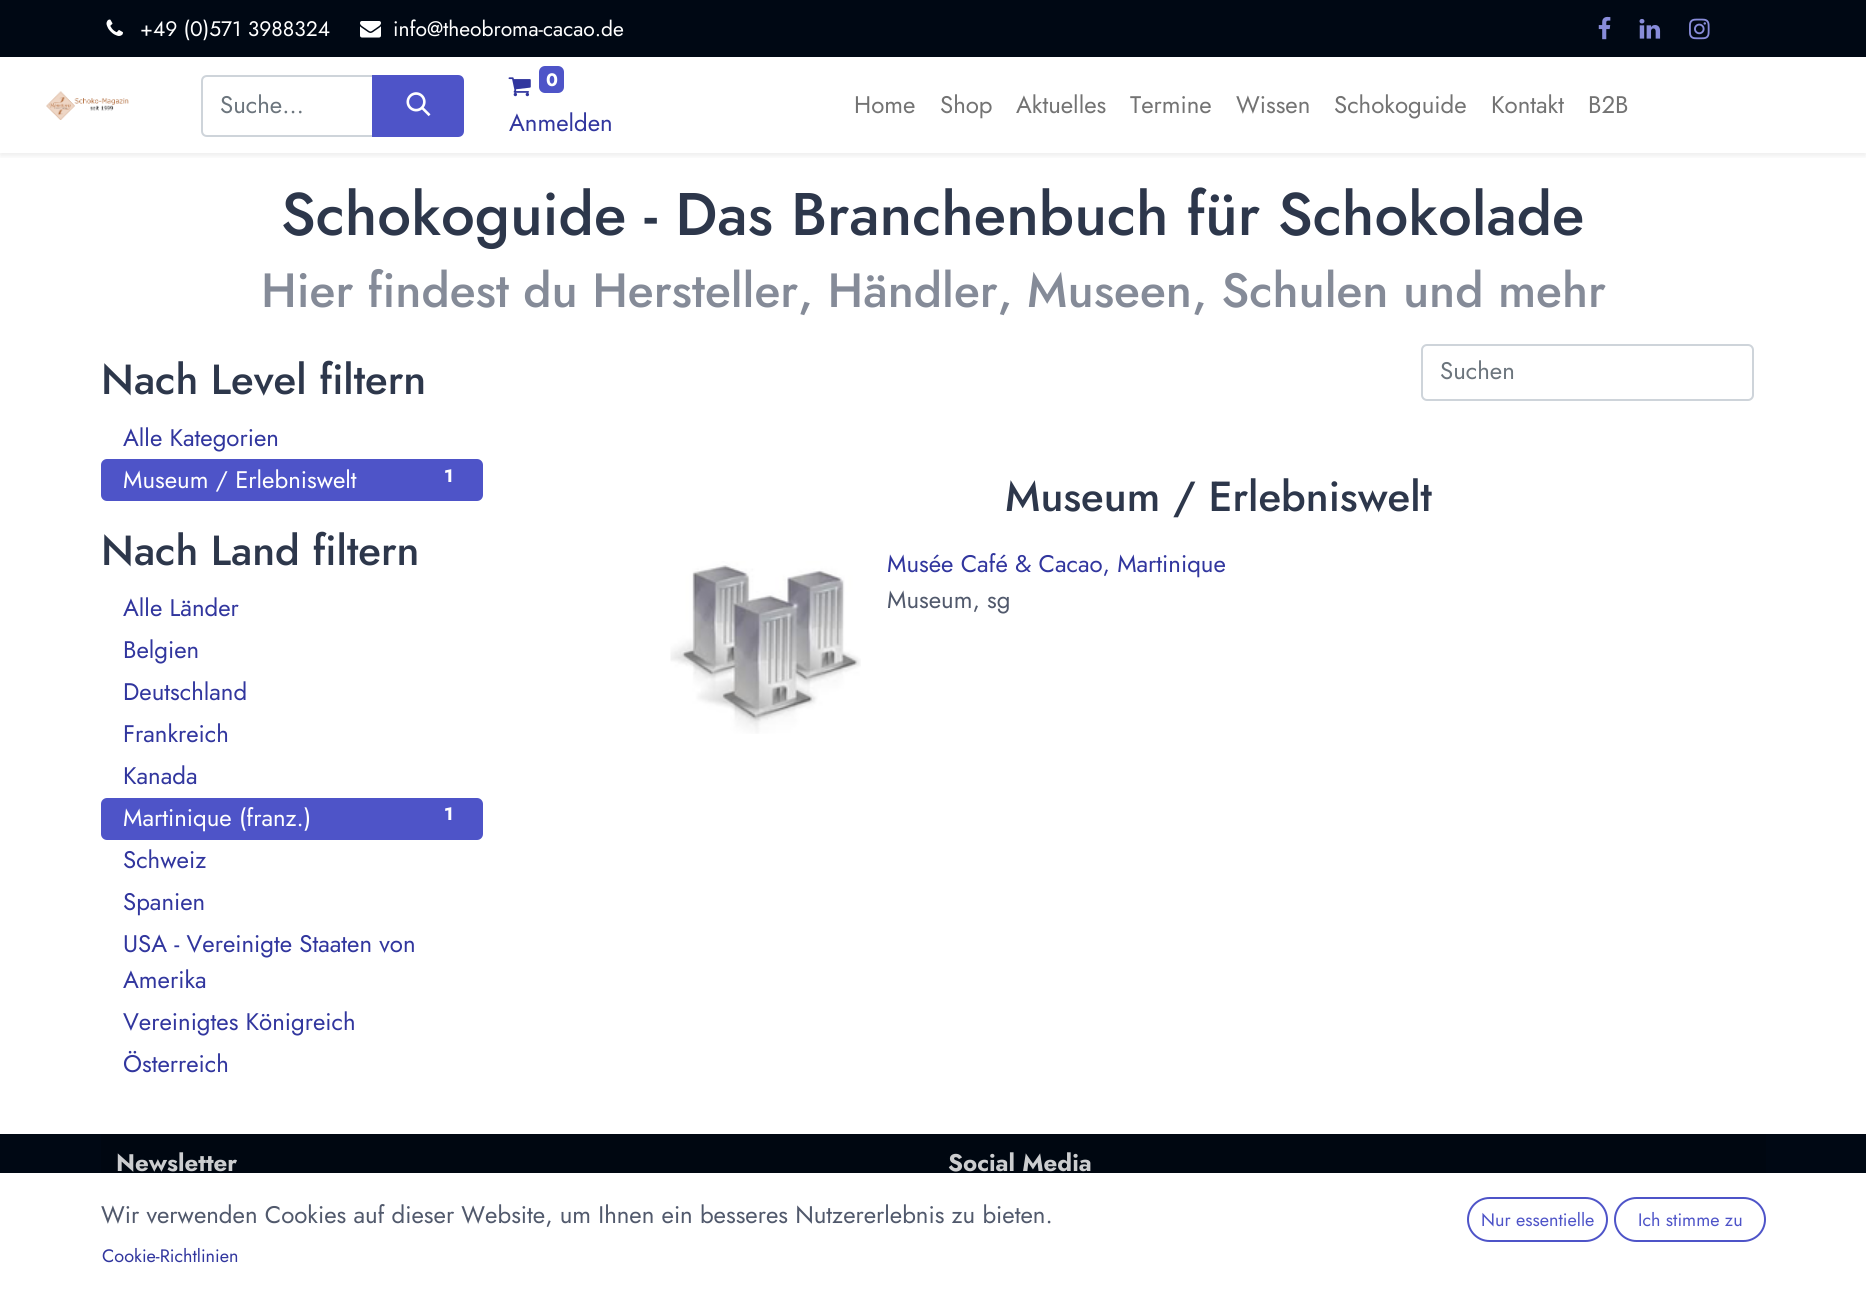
import math
import cairocffi as cairo

surface = cairo.ImageSurface(cairo.FORMAT_RGB24, 1866, 1302)
ctx = cairo.Context(surface)
options = cairo.FontOptions()
options.set_hint_metrics(cairo.HINT_METRICS_OFF)
options.set_hint_style(cairo.HINT_STYLE_NONE)
ctx.set_font_options(options)
ctx.set_miter_limit(4)


def rgb(r, g, b):
    ctx.set_source_rgb(r / 255, g / 255, b / 255)


def face(family, size, italic, bold):
    ctx.select_font_face(family, cairo.FONT_SLANT_ITALIC if italic else cairo.FONT_SLANT_NORMAL, cairo.FONT_WEIGHT_BOLD if bold else cairo.FONT_WEIGHT_NORMAL)
    ctx.set_font_size(size)


def label(x, y, s):
    ctx.move_to(x, y)
    ctx.show_text(s)


def rect(x, y, w, h):
    ctx.rectangle(x, y, w, h)
    ctx.fill()


def rrect(x, y, w, h, r):
    ctx.new_sub_path()
    for i, (u, v) in enumerate([(x + w - r, y + h - r), (x + r, y + h - r), (x + r, y + r), (x + w - r, y + r)]):
        ctx.arc(u, v, r, i * math.pi / 2, (i + 1) * math.pi / 2)
    ctx.close_path()


def soft_shadow(x, y, w, h, r, blur, alpha):
    ctx.push_group_with_content(cairo.CONTENT_ALPHA)
    ctx.set_operator(cairo.OPERATOR_SOURCE)
    for i in range(15, -16, -2):
        e = blur * i / 6
        if min(w, h) + 2 * e > 0:
            ctx.set_source_rgba(0, 0, 0, alpha * math.erfc((i - 1) / 8.5) / 2)
            rrect(x - e, y - e, w + 2 * e, h + 2 * e, max(0, min(r + e + blur * .6, min(w, h) / 2 + e)))
            ctx.fill()
    ctx.mask(ctx.pop_group())


def image(path, x, y, w, h):
    ctx.save()
    ctx.set_source_surface(cairo.ImageSurface.create_from_png(path), x, y)
    ctx.rectangle(x, y, w, h)
    ctx.fill()
    ctx.restore()


rgb(255, 255, 255)
ctx.paint()
rgb(0, 8, 20)
rect(0, 0, 1866, 57)
image('image0.png', 106, 19, 17, 17)
face('Jost', 21, 0, 0)
rgb(255, 255, 255)
label(140, 36, '+49 (0)571 3988324')
image('image1.png', 360, 21, 21, 17)
label(393, 36, 'info@theobroma-cacao.de')
image('image2.png', 1598, 16, 13, 24)
image('image3.png', 1639, 18, 22, 21)
image('image4.png', 1689, 18, 21, 22)
ctx.save()
ctx.rectangle(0, 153, 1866, 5)
ctx.clip()
rgb(0, 0, 0)
soft_shadow(0, 60, 1866, 96, 0, 3, 0.07)
ctx.restore()
image('image5.png', 46, 91, 83, 29)
ctx.new_path()
ctx.move_to(207, 76)
ctx.line_to(373, 76)
ctx.line_to(373, 136)
ctx.line_to(207, 136)
ctx.curve_to(204, 136, 202, 134, 202, 131)
ctx.line_to(202, 81)
ctx.curve_to(202, 78, 204, 76, 207, 76)
ctx.close_path()
rgb(206, 212, 218)
ctx.stroke()
face('Jost', 24, 0, 0)
rgb(108, 117, 125)
label(220, 113, 'Suche…')
rgb(78, 84, 200)
ctx.new_path()
ctx.move_to(373, 76)
ctx.line_to(458, 76)
ctx.curve_to(461, 76, 463, 78, 463, 81)
ctx.line_to(463, 131)
ctx.curve_to(463, 134, 461, 136, 458, 136)
ctx.line_to(373, 136)
ctx.close_path()
ctx.fill_preserve()
ctx.stroke()
image('image6.png', 406, 92, 25, 25)
image('image7.png', 508, 77, 23, 20)
rrect(539, 66, 25, 27, 6)
ctx.fill()
face('Jost', 18, 0, 1)
rgb(255, 255, 255)
label(546, 86, '0')
face('Jost', 24, 0, 0)
rgb(49, 54, 158)
label(509, 131, 'Anmelden')
rgb(115, 115, 115)
label(854, 113, 'Home')
label(940, 113, 'Shop')
label(1016, 113, 'Aktuelles')
label(1130, 113, 'Termine')
label(1236, 113, 'Wissen')
label(1334, 113, 'Schokoguide')
label(1491, 113, 'Kontakt')
label(1588, 113, 'B2B')
face('Jost Medium', 60, 0, 0)
rgb(45, 55, 75)
label(281, 235, 'Schokoguide - Das Branchenbuch für Schokolade')
face('Jost Medium', 48, 0, 0)
rgb(133, 139, 152)
label(261, 307, 'Hier findest du Hersteller, Händler, Museen, Schulen und mehr')
face('Jost Medium', 42, 0, 0)
rgb(45, 55, 75)
label(101, 394, 'Nach Level filtern')
face('Jost', 24, 0, 0)
rgb(49, 54, 158)
label(123, 446, 'Alle Kategorien')
rgb(78, 84, 200)
rrect(101, 459, 382, 42, 6)
ctx.fill()
rgb(255, 255, 255)
label(123, 488, 'Museum / Erlebniswelt')
face('Jost', 18, 0, 1)
label(444, 482, '1')
face('Jost Medium', 42, 0, 0)
rgb(45, 55, 75)
label(101, 565, 'Nach Land filtern')
face('Jost', 24, 0, 0)
rgb(49, 54, 158)
label(123, 616, 'Alle Länder')
label(123, 658, 'Belgien')
label(123, 700, 'Deutschland')
label(123, 742, 'Frankreich')
label(123, 784, 'Kanada')
rgb(78, 84, 200)
rrect(101, 798, 382, 42, 6)
ctx.fill()
rgb(255, 255, 255)
label(123, 826, 'Martinique (franz.)')
face('Jost', 18, 0, 1)
label(444, 820, '1')
face('Jost', 24, 0, 0)
rgb(49, 54, 158)
label(123, 868, 'Schweiz')
label(123, 910, 'Spanien')
label(123, 952, 'USA - Vereinigte Staaten von')
label(123, 988, 'Amerika')
label(123, 1030, 'Vereinigtes Königreich')
label(123, 1072, 'Österreich')
rrect(1422, 345, 331, 55, 5)
rgb(206, 212, 218)
ctx.stroke()
rgb(108, 117, 125)
label(1440, 379, 'Suchen')
face('Jost Medium', 42, 0, 0)
rgb(45, 55, 75)
label(1005, 511, 'Museum / Erlebniswelt')
image('image8.png', 670, 561, 191, 173)
face('Jost', 24, 0, 0)
rgb(49, 54, 158)
label(887, 572, 'Musée Café & Cacao, Martinique')
rgb(81, 89, 108)
label(887, 608, 'Museum, sg')
rgb(0, 8, 20)
rect(0, 1134, 1866, 39)
rgb(0, 7, 17)
rect(101, 1134, 1665, 39)
face('Jost', 24, 0, 1)
rgb(204, 205, 207)
label(116, 1171, 'Newsletter')
label(948, 1171, 'Social Media')
face('Jost', 24, 0, 0)
rgb(81, 89, 108)
label(101, 1223, 'Wir verwenden Cookies auf dieser Website, um Ihnen ein besseres Nutzererlebnis zu bieten.')
face('Jost', 18, 0, 0)
rgb(49, 54, 158)
label(102, 1262, 'Cookie-Richtlinien')
rrect(1468, 1198, 139, 43, 21.5)
rgb(78, 84, 200)
ctx.stroke()
label(1481, 1226, 'Nur essentielle')
rrect(1615, 1198, 150, 43, 21.5)
ctx.stroke()
label(1638, 1226, 'Ich stimme zu')
surface.write_to_png('render.png')
